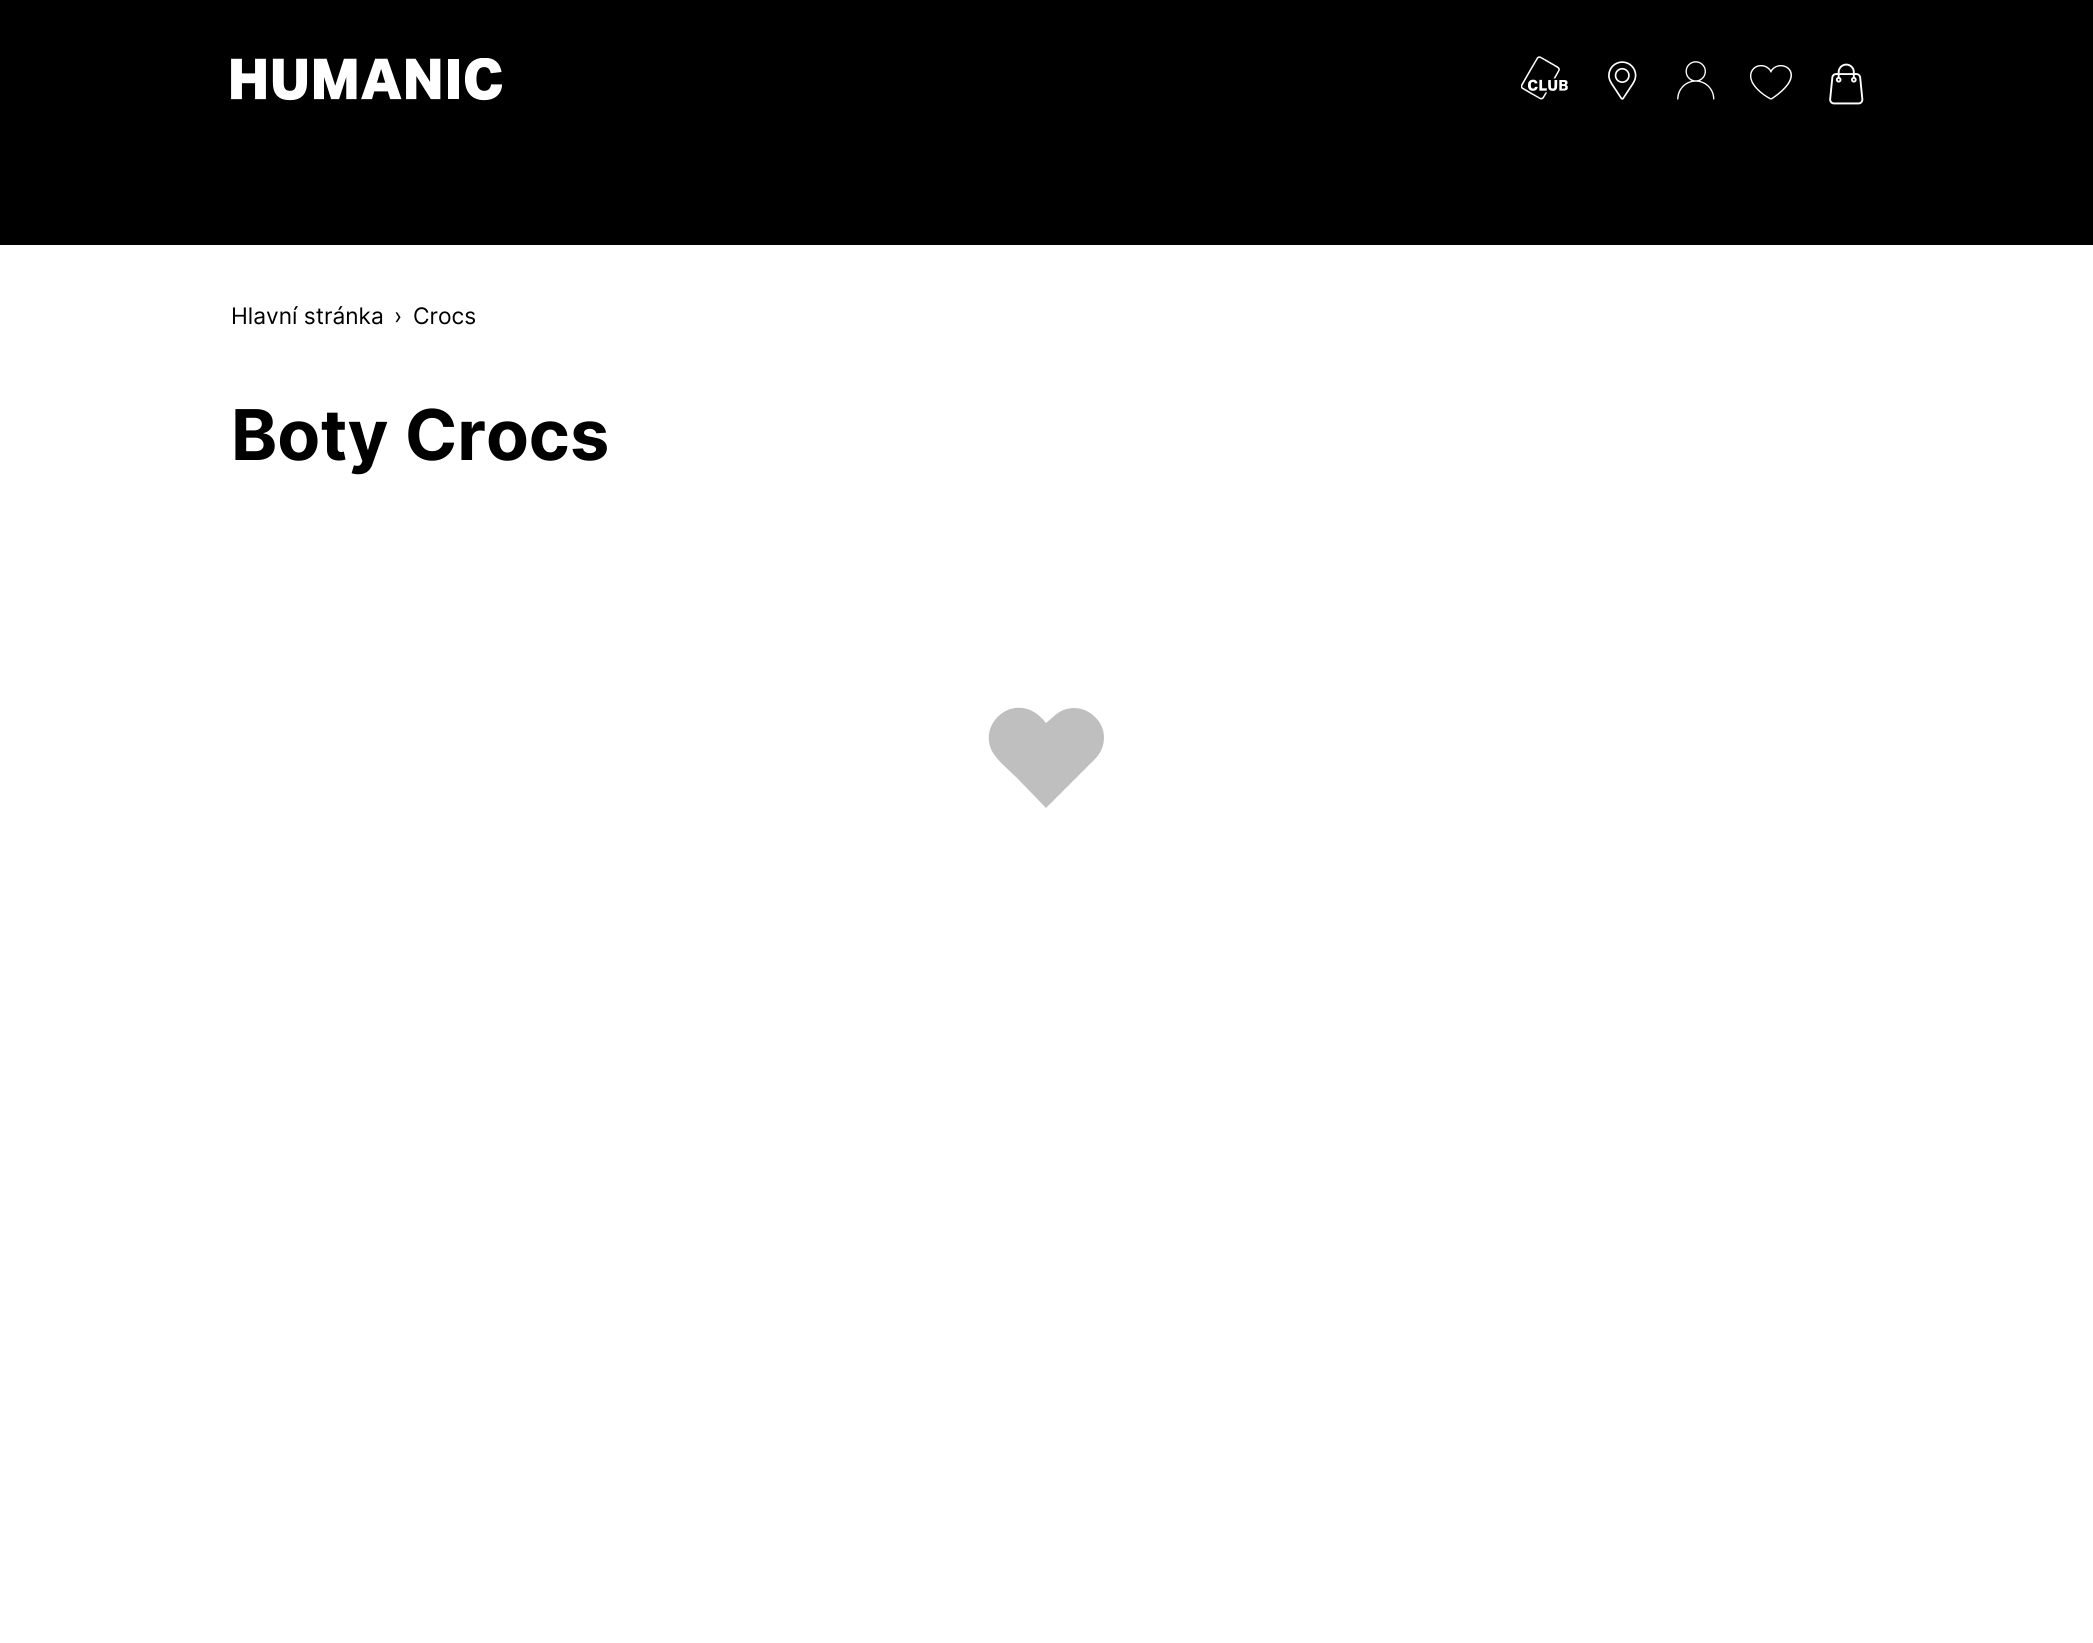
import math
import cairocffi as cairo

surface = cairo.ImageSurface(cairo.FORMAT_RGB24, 2093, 1643)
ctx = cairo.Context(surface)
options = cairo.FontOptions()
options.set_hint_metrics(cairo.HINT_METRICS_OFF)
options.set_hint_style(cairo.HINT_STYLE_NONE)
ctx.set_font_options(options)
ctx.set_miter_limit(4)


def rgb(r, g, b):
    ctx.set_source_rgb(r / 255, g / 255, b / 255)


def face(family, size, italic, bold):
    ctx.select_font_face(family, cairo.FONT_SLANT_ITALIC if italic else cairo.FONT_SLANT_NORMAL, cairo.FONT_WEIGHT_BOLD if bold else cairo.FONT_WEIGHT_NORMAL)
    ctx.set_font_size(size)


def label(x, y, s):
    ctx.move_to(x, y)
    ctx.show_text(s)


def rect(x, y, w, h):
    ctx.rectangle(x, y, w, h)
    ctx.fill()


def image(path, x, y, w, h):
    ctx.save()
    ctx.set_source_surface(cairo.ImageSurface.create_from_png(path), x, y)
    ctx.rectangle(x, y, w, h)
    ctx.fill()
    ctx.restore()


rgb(255, 255, 255)
ctx.paint()
rgb(0, 0, 0)
rect(0, 0, 2093, 245)
image('image0.png', 231, 58, 271, 43)
image('image1.png', 1521, 56, 47, 44)
image('image2.png', 1608, 61, 29, 39)
image('image3.png', 1677, 61, 38, 39)
image('image4.png', 1750, 65, 42, 35)
image('image5.png', 1829, 63, 35, 42)
face('Inter', 22.75, 0, 0)
label(231, 324, 'Hlavní stránka')
label(394, 324, '›')
label(413, 324, 'Crocs')
face('Inter', 70, 0, 1)
label(231, 460, 'Boty Crocs')
rgb(191, 191, 191)
ctx.new_path()
ctx.move_to(1095, 717)
ctx.curve_to(1083, 705, 1065, 705, 1053, 717)
ctx.line_to(1046, 723)
ctx.curve_to(1042, 718, 1037, 713, 1030, 710)
ctx.curve_to(1006, 700, 981, 725, 991, 749)
ctx.curve_to(995, 759, 1009, 770, 1017, 778)
ctx.line_to(1046, 808)
ctx.line_to(1095, 759)
ctx.curve_to(1107, 747, 1107, 728, 1095, 717)
ctx.close_path()
ctx.fill()
surface.write_to_png('render.png')
